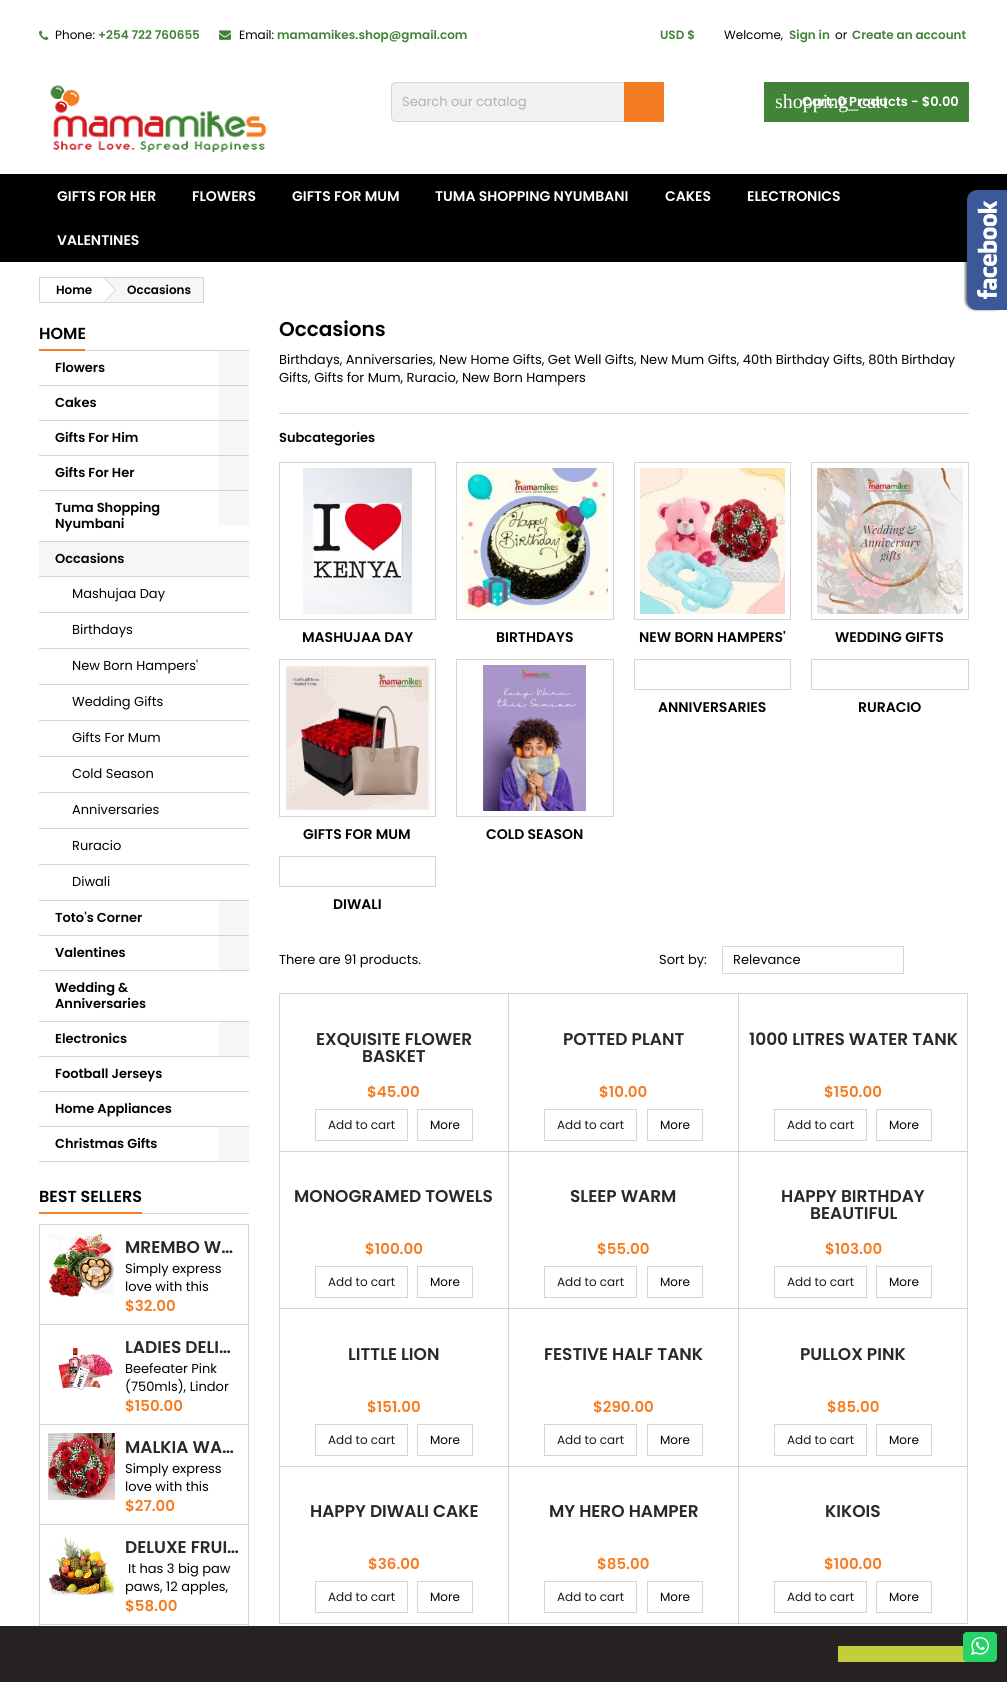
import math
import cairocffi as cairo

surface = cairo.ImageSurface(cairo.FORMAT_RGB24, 1007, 1682)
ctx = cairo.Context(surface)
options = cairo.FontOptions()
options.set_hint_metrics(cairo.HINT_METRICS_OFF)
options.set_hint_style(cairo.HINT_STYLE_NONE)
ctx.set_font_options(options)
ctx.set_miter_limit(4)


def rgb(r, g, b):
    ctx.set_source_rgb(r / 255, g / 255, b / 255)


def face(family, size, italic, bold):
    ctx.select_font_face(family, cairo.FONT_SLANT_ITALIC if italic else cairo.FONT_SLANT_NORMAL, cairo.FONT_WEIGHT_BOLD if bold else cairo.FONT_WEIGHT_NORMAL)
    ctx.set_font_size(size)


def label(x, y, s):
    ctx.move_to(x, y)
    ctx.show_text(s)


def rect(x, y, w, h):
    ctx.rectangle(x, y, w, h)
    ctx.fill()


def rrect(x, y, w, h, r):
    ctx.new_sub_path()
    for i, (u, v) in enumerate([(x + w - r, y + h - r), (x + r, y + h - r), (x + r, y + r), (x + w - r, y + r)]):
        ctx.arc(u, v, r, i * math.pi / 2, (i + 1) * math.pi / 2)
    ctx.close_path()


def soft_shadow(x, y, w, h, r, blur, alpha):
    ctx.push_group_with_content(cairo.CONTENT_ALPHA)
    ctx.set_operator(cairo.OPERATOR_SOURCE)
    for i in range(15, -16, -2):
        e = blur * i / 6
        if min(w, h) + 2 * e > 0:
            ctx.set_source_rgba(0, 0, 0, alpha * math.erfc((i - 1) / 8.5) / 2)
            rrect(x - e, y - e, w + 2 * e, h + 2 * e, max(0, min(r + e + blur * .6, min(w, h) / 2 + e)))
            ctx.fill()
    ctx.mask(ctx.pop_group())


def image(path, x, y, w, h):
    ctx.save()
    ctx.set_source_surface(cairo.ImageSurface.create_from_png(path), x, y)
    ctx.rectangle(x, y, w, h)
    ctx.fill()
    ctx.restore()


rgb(255, 255, 255)
ctx.paint()
image('image0.png', 39, 30, 10, 10)
face('Poppins', 12, 0, 0)
rgb(0, 0, 0)
label(55, 39, 'Phone:')
face('Poppins SemiBold', 12, 0, 0)
rgb(65, 131, 55)
label(98, 39, '+254 722 760655')
image('image1.png', 219, 30, 12, 10)
face('Poppins', 12, 0, 0)
rgb(0, 0, 0)
label(239, 39, 'Email:')
face('Poppins SemiBold', 12, 0, 0)
rgb(65, 131, 55)
label(277, 39, 'mamamikes.shop@gmail.com')
label(660, 39, 'USD $')
face('Poppins', 12, 0, 0)
rgb(0, 0, 0)
label(724, 39, 'Welcome,')
face('Poppins SemiBold', 12, 0, 0)
rgb(65, 131, 55)
label(789, 39, 'Sign in')
face('Poppins', 12, 0, 0)
rgb(0, 0, 0)
label(835, 39, 'or')
face('Poppins SemiBold', 12, 0, 0)
rgb(65, 131, 55)
label(852, 39, 'Create an account')
image('image2.png', 50, 85, 216, 67)
rgb(241, 241, 241)
rrect(391.5, 82.5, 272, 39, 4.5)
ctx.fill_preserve()
rgb(214, 212, 212)
ctx.set_line_width(1)
ctx.stroke()
face('Poppins', 13, 0, 0)
rgb(177, 177, 177)
label(402, 106, 'Search our catalog')
rgb(244, 124, 34)
rect(624, 82, 40, 40)
rgb(65, 131, 55)
rect(764, 82, 205, 40)
face('Poppins SemiBold', 13, 0, 0)
rgb(255, 255, 255)
label(802, 106, 'Cart: 0 Products - $0.00')
face('Liberation Serif', 20, 0, 0)
label(775, 108, 'shopping_cart')
rgb(0, 0, 0)
rect(0, 174, 1007, 88)
face('Poppins SemiBold', 14, 0, 0)
rgb(255, 255, 255)
label(57, 201, 'GIFTS FOR HER')
label(192, 201, 'FLOWERS')
label(292, 201, 'GIFTS FOR MUM')
label(435, 201, 'TUMA SHOPPING NYUMBANI')
label(665, 201, 'CAKES')
label(747, 201, 'ELECTRONICS')
label(57, 245, 'VALENTINES')
rgb(0, 0, 0)
soft_shadow(965, 190, 40, 120, 10, 1, 0.5)
rgb(59, 89, 152)
ctx.new_path()
ctx.move_to(977, 190)
ctx.line_to(1007, 190)
ctx.line_to(1007, 310)
ctx.line_to(977, 310)
ctx.curve_to(971.5, 310, 967, 305.5, 967, 300)
ctx.line_to(967, 200)
ctx.curve_to(967, 194.5, 971.5, 190, 977, 190)
ctx.close_path()
ctx.fill()
image('image3.png', 977, 201, 20, 98)
ctx.rectangle(39.5, 277.5, 164, 25)
rgb(214, 212, 212)
ctx.stroke()
face('Poppins SemiBold', 12, 0, 0)
rgb(0, 0, 0)
label(56, 294, 'Home')
rgb(246, 246, 246)
rect(105, 278, 98, 24)
rgb(255, 255, 255)
ctx.new_path()
ctx.move_to(105, 278.5)
ctx.line_to(115, 288.5)
ctx.curve_to(116, 289.5, 116, 290.5, 115, 291.5)
ctx.line_to(105, 301.5)
ctx.curve_to(104.5, 302, 103, 302, 102.5, 301.5)
ctx.line_to(92.5, 291.5)
ctx.curve_to(91.5, 290.5, 91.5, 289.5, 92.5, 288.5)
ctx.line_to(102.5, 278.5)
ctx.curve_to(103, 278, 104.5, 278, 105, 278.5)
ctx.close_path()
ctx.fill()
rgb(214, 212, 212)
ctx.new_path()
ctx.move_to(104.5, 278)
ctx.line_to(116, 289.5)
ctx.line_to(115, 290)
ctx.line_to(104, 278.5)
ctx.close_path()
ctx.move_to(115, 290)
ctx.line_to(116, 290.5)
ctx.line_to(104.5, 302)
ctx.line_to(104, 301.5)
ctx.close_path()
ctx.fill()
rgb(0, 0, 0)
label(127, 294, 'Occasions')
rgb(214, 212, 212)
rect(85, 350, 164, 1)
rgb(244, 124, 34)
rect(39, 349, 46, 2)
face('Poppins SemiBold', 16, 0, 0)
rgb(0, 0, 0)
label(39, 339, 'HOME')
rgb(214, 212, 212)
rect(39, 385, 210, 1)
face('Poppins SemiBold', 13, 0, 0)
rgb(0, 0, 0)
label(55, 372, 'Flowers')
rgb(246, 246, 246)
rect(219, 351, 30, 34)
rgb(214, 212, 212)
rect(39, 420, 210, 1)
rgb(0, 0, 0)
label(55, 407, 'Cakes')
rgb(246, 246, 246)
rect(219, 386, 30, 34)
rgb(214, 212, 212)
rect(39, 455, 210, 1)
rgb(0, 0, 0)
label(55, 442, 'Gifts For Him')
rgb(246, 246, 246)
rect(219, 421, 30, 34)
rgb(214, 212, 212)
rect(39, 490, 210, 1)
rgb(0, 0, 0)
label(55, 477, 'Gifts For Her')
rgb(246, 246, 246)
rect(219, 456, 30, 34)
rgb(214, 212, 212)
rect(39, 541, 210, 1)
rgb(0, 0, 0)
label(55, 512, 'Tuma Shopping')
label(55, 528, 'Nyumbani')
rgb(246, 246, 246)
rect(219, 491, 30, 34)
rect(39, 542, 210, 34)
rgb(214, 212, 212)
rect(39, 576, 210, 1)
rgb(0, 0, 0)
label(55, 563, 'Occasions')
rgb(214, 212, 212)
rect(39, 612, 210, 1)
face('Poppins', 13, 0, 0)
rgb(0, 0, 0)
label(72, 598, 'Mashujaa Day')
rgb(214, 212, 212)
rect(39, 648, 210, 1)
rgb(0, 0, 0)
label(72, 634, 'Birthdays')
rgb(214, 212, 212)
rect(39, 684, 210, 1)
rgb(0, 0, 0)
label(72, 670, 'New Born Hampers\'')
rgb(214, 212, 212)
rect(39, 720, 210, 1)
rgb(0, 0, 0)
label(72, 706, 'Wedding Gifts')
rgb(214, 212, 212)
rect(39, 756, 210, 1)
rgb(0, 0, 0)
label(72, 742, 'Gifts For Mum')
rgb(214, 212, 212)
rect(39, 792, 210, 1)
rgb(0, 0, 0)
label(72, 778, 'Cold Season')
rgb(214, 212, 212)
rect(39, 828, 210, 1)
rgb(0, 0, 0)
label(72, 814, 'Anniversaries')
rgb(214, 212, 212)
rect(39, 864, 210, 1)
rgb(0, 0, 0)
label(72, 850, 'Ruracio')
rgb(214, 212, 212)
rect(39, 900, 210, 1)
rgb(0, 0, 0)
label(72, 886, 'Diwali')
rgb(214, 212, 212)
rect(39, 935, 210, 1)
face('Poppins SemiBold', 13, 0, 0)
rgb(0, 0, 0)
label(55, 922, 'Toto\'s Corner')
rgb(246, 246, 246)
rect(219, 901, 30, 34)
rgb(214, 212, 212)
rect(39, 970, 210, 1)
rgb(0, 0, 0)
label(55, 957, 'Valentines')
rgb(246, 246, 246)
rect(219, 936, 30, 34)
rgb(214, 212, 212)
rect(39, 1021, 210, 1)
rgb(0, 0, 0)
label(55, 992, 'Wedding &')
label(55, 1008, 'Anniversaries')
rgb(214, 212, 212)
rect(39, 1056, 210, 1)
rgb(0, 0, 0)
label(55, 1043, 'Electronics')
rgb(246, 246, 246)
rect(219, 1022, 30, 34)
rgb(214, 212, 212)
rect(39, 1091, 210, 1)
rgb(0, 0, 0)
label(55, 1078, 'Football Jerseys')
rgb(214, 212, 212)
rect(39, 1126, 210, 1)
rgb(0, 0, 0)
label(55, 1113, 'Home Appliances')
rgb(214, 212, 212)
rect(39, 1161, 210, 1)
rgb(0, 0, 0)
label(55, 1148, 'Christmas Gifts')
rgb(246, 246, 246)
rect(219, 1127, 30, 34)
rgb(214, 212, 212)
rect(142, 1213, 107, 1)
rgb(244, 124, 34)
rect(39, 1212, 103, 2)
face('Poppins SemiBold', 16, 0, 0)
rgb(0, 0, 0)
label(39, 1202, 'BEST SELLERS')
ctx.rectangle(39.5, 1224.5, 209, 100)
rgb(214, 212, 212)
ctx.stroke()
image('image4.png', 48, 1233, 67, 64)
face('Poppins SemiBold', 17, 0, 0)
rgb(40, 40, 40)
label(125, 1253, 'MREMBO W…')
face('Poppins', 13, 0, 0)
rgb(0, 0, 0)
label(125, 1273, 'Simply express')
label(125, 1291, 'love with this')
face('Poppins SemiBold', 15, 0, 0)
rgb(244, 124, 34)
label(125, 1311, '$32.00')
rgb(214, 212, 212)
rect(248, 1325, 1, 301)
rect(39, 1424, 210, 1)
rect(39, 1325, 1, 100)
image('image5.png', 56, 1345, 58, 45)
face('Poppins SemiBold', 17, 0, 0)
rgb(40, 40, 40)
label(125, 1353, 'LADIES DELI…')
face('Poppins', 13, 0, 0)
rgb(0, 0, 0)
label(125, 1373, 'Beefeater Pink')
label(125, 1391, '(750mls), Lindor')
face('Poppins SemiBold', 15, 0, 0)
rgb(244, 124, 34)
label(125, 1411, '$150.00')
rgb(214, 212, 212)
rect(39, 1524, 210, 1)
rect(39, 1425, 1, 100)
image('image6.png', 48, 1433, 67, 67)
face('Poppins SemiBold', 17, 0, 0)
rgb(40, 40, 40)
label(125, 1453, 'MALKIA WA…')
face('Poppins', 13, 0, 0)
rgb(0, 0, 0)
label(125, 1473, 'Simply express')
label(125, 1491, 'love with this')
face('Poppins SemiBold', 15, 0, 0)
rgb(244, 124, 34)
label(125, 1511, '$27.00')
rgb(214, 212, 212)
rect(39, 1624, 210, 1)
rect(39, 1525, 1, 101)
image('image7.png', 48, 1536, 67, 60)
face('Poppins SemiBold', 17, 0, 0)
rgb(40, 40, 40)
label(125, 1553, 'DELUXE FRUI…')
face('Poppins', 13, 0, 0)
rgb(0, 0, 0)
label(128, 1573, 'It has 3 big paw')
label(125, 1591, 'paws, 12 apples,')
face('Poppins SemiBold', 15, 0, 0)
rgb(244, 124, 34)
label(125, 1611, '$58.00')
face('Poppins SemiBold', 20, 0, 0)
rgb(0, 0, 0)
label(279, 336, 'Occasions')
face('Poppins', 13, 0, 0)
label(279, 364, 'Birthdays, Anniversaries, New Home Gifts, Get Well Gifts, New Mum Gifts, 40th Birthday Gifts, 80th Birthday')
label(279, 382, 'Gifts, Gifts for Mum, Ruracio, New Born Hampers')
rgb(214, 212, 212)
rect(279, 413, 690, 1)
face('Poppins SemiBold', 13, 0, 0)
rgb(0, 0, 0)
label(279, 442, 'Subcategories')
ctx.rectangle(279.5, 462.5, 156, 157)
rgb(214, 212, 212)
ctx.stroke()
image('image8.png', 303, 468, 109, 146)
face('Poppins SemiBold', 14, 0, 0)
rgb(0, 0, 0)
label(302, 642, 'MASHUJAA DAY')
ctx.rectangle(456.5, 462.5, 157, 157)
rgb(214, 212, 212)
ctx.stroke()
image('image9.png', 462, 468, 146, 146)
rgb(0, 0, 0)
label(496, 642, 'BIRTHDAYS')
ctx.rectangle(634.5, 462.5, 156, 157)
rgb(214, 212, 212)
ctx.stroke()
image('image10.png', 640, 468, 145, 146)
rgb(0, 0, 0)
label(639, 642, 'NEW BORN HAMPERS\'')
ctx.rectangle(811.5, 462.5, 157, 157)
rgb(214, 212, 212)
ctx.stroke()
image('image11.png', 817, 468, 146, 146)
rgb(0, 0, 0)
label(835, 642, 'WEDDING GIFTS')
ctx.rectangle(634.5, 659.5, 156, 30)
rgb(214, 212, 212)
ctx.stroke()
rgb(0, 0, 0)
label(658, 712, 'ANNIVERSARIES')
ctx.rectangle(811.5, 659.5, 157, 30)
rgb(214, 212, 212)
ctx.stroke()
rgb(0, 0, 0)
label(858, 712, 'RURACIO')
ctx.rectangle(279.5, 659.5, 156, 157)
rgb(214, 212, 212)
ctx.stroke()
image('image12.png', 285, 665, 145, 146)
rgb(0, 0, 0)
label(303, 839, 'GIFTS FOR MUM')
ctx.rectangle(456.5, 659.5, 157, 157)
rgb(214, 212, 212)
ctx.stroke()
image('image13.png', 483, 665, 103, 146)
rgb(0, 0, 0)
label(486, 839, 'COLD SEASON')
ctx.rectangle(279.5, 856.5, 156, 30)
rgb(214, 212, 212)
ctx.stroke()
rgb(0, 0, 0)
label(333, 909, 'DIWALI')
face('Poppins', 13, 0, 0)
label(279, 964, 'There are 91 products.')
label(659, 964, 'Sort by:')
ctx.rectangle(722.5, 946.5, 181, 27)
rgb(214, 212, 212)
ctx.stroke()
rgb(0, 0, 0)
label(733, 964, 'Relevance')
ctx.rectangle(279.5, 993.5, 229, 158)
rgb(214, 212, 212)
ctx.stroke()
face('Poppins SemiBold', 17, 0, 0)
rgb(40, 40, 40)
label(316, 1045, 'EXQUISITE FLOWER')
label(362, 1062, 'BASKET')
face('Poppins SemiBold', 15, 0, 0)
rgb(244, 124, 34)
label(367, 1097, '$45.00')
ctx.rectangle(315.5, 1109.5, 92, 31)
rgb(214, 212, 212)
ctx.stroke()
face('Poppins', 12, 0, 0)
rgb(27, 27, 27)
label(328, 1129, 'Add to cart')
ctx.rectangle(417.5, 1109.5, 55, 31)
rgb(214, 212, 212)
ctx.stroke()
rgb(0, 0, 0)
label(430, 1129, 'More')
ctx.rectangle(508.5, 993.5, 230, 158)
rgb(214, 212, 212)
ctx.stroke()
face('Poppins SemiBold', 17, 0, 0)
rgb(40, 40, 40)
label(563, 1045, 'POTTED PLANT')
face('Poppins SemiBold', 15, 0, 0)
rgb(244, 124, 34)
label(599, 1097, '$10.00')
ctx.rectangle(544.5, 1109.5, 92, 31)
rgb(214, 212, 212)
ctx.stroke()
face('Poppins', 12, 0, 0)
rgb(27, 27, 27)
label(557, 1129, 'Add to cart')
ctx.rectangle(647.5, 1109.5, 55, 31)
rgb(214, 212, 212)
ctx.stroke()
rgb(0, 0, 0)
label(660, 1129, 'More')
ctx.rectangle(738.5, 993.5, 229, 158)
rgb(214, 212, 212)
ctx.stroke()
face('Poppins SemiBold', 17, 0, 0)
rgb(40, 40, 40)
label(749, 1045, '1000 LITRES WATER TANK')
face('Poppins SemiBold', 15, 0, 0)
rgb(244, 124, 34)
label(824, 1097, '$150.00')
ctx.rectangle(774.5, 1109.5, 92, 31)
rgb(214, 212, 212)
ctx.stroke()
face('Poppins', 12, 0, 0)
rgb(27, 27, 27)
label(787, 1129, 'Add to cart')
ctx.rectangle(876.5, 1109.5, 55, 31)
rgb(214, 212, 212)
ctx.stroke()
rgb(0, 0, 0)
label(889, 1129, 'More')
ctx.rectangle(279.5, 1151.5, 229, 157)
rgb(214, 212, 212)
ctx.stroke()
face('Poppins SemiBold', 17, 0, 0)
rgb(40, 40, 40)
label(294, 1202, 'MONOGRAMED TOWELS')
face('Poppins SemiBold', 15, 0, 0)
rgb(244, 124, 34)
label(365, 1254, '$100.00')
ctx.rectangle(315.5, 1266.5, 92, 31)
rgb(214, 212, 212)
ctx.stroke()
face('Poppins', 12, 0, 0)
rgb(27, 27, 27)
label(328, 1286, 'Add to cart')
ctx.rectangle(417.5, 1266.5, 55, 31)
rgb(214, 212, 212)
ctx.stroke()
rgb(0, 0, 0)
label(430, 1286, 'More')
ctx.rectangle(508.5, 1151.5, 230, 157)
rgb(214, 212, 212)
ctx.stroke()
face('Poppins SemiBold', 17, 0, 0)
rgb(40, 40, 40)
label(570, 1202, 'SLEEP WARM')
face('Poppins SemiBold', 15, 0, 0)
rgb(244, 124, 34)
label(597, 1254, '$55.00')
ctx.rectangle(544.5, 1266.5, 92, 31)
rgb(214, 212, 212)
ctx.stroke()
face('Poppins', 12, 0, 0)
rgb(27, 27, 27)
label(557, 1286, 'Add to cart')
ctx.rectangle(647.5, 1266.5, 55, 31)
rgb(214, 212, 212)
ctx.stroke()
rgb(0, 0, 0)
label(660, 1286, 'More')
ctx.rectangle(738.5, 1151.5, 229, 157)
rgb(214, 212, 212)
ctx.stroke()
face('Poppins SemiBold', 17, 0, 0)
rgb(40, 40, 40)
label(781, 1202, 'HAPPY BIRTHDAY')
label(810, 1219, 'BEAUTIFUL')
face('Poppins SemiBold', 15, 0, 0)
rgb(244, 124, 34)
label(825, 1254, '$103.00')
ctx.rectangle(774.5, 1266.5, 92, 31)
rgb(214, 212, 212)
ctx.stroke()
face('Poppins', 12, 0, 0)
rgb(27, 27, 27)
label(787, 1286, 'Add to cart')
ctx.rectangle(876.5, 1266.5, 55, 31)
rgb(214, 212, 212)
ctx.stroke()
rgb(0, 0, 0)
label(889, 1286, 'More')
ctx.rectangle(279.5, 1308.5, 229, 158)
rgb(214, 212, 212)
ctx.stroke()
face('Poppins SemiBold', 17, 0, 0)
rgb(40, 40, 40)
label(348, 1360, 'LITTLE LION')
face('Poppins SemiBold', 15, 0, 0)
rgb(244, 124, 34)
label(367, 1412, '$151.00')
ctx.rectangle(315.5, 1424.5, 92, 31)
rgb(214, 212, 212)
ctx.stroke()
face('Poppins', 12, 0, 0)
rgb(27, 27, 27)
label(328, 1444, 'Add to cart')
ctx.rectangle(417.5, 1424.5, 55, 31)
rgb(214, 212, 212)
ctx.stroke()
rgb(0, 0, 0)
label(430, 1444, 'More')
ctx.rectangle(508.5, 1308.5, 230, 158)
rgb(214, 212, 212)
ctx.stroke()
face('Poppins SemiBold', 17, 0, 0)
rgb(40, 40, 40)
label(544, 1360, 'FESTIVE HALF TANK')
face('Poppins SemiBold', 15, 0, 0)
rgb(244, 124, 34)
label(593, 1412, '$290.00')
ctx.rectangle(544.5, 1424.5, 92, 31)
rgb(214, 212, 212)
ctx.stroke()
face('Poppins', 12, 0, 0)
rgb(27, 27, 27)
label(557, 1444, 'Add to cart')
ctx.rectangle(647.5, 1424.5, 55, 31)
rgb(214, 212, 212)
ctx.stroke()
rgb(0, 0, 0)
label(660, 1444, 'More')
ctx.rectangle(738.5, 1308.5, 229, 158)
rgb(214, 212, 212)
ctx.stroke()
face('Poppins SemiBold', 17, 0, 0)
rgb(40, 40, 40)
label(800, 1360, 'PULLOX PINK')
face('Poppins SemiBold', 15, 0, 0)
rgb(244, 124, 34)
label(827, 1412, '$85.00')
ctx.rectangle(774.5, 1424.5, 92, 31)
rgb(214, 212, 212)
ctx.stroke()
face('Poppins', 12, 0, 0)
rgb(27, 27, 27)
label(787, 1444, 'Add to cart')
ctx.rectangle(876.5, 1424.5, 55, 31)
rgb(214, 212, 212)
ctx.stroke()
rgb(0, 0, 0)
label(889, 1444, 'More')
ctx.rectangle(279.5, 1466.5, 229, 157)
rgb(214, 212, 212)
ctx.stroke()
face('Poppins SemiBold', 17, 0, 0)
rgb(40, 40, 40)
label(310, 1517, 'HAPPY DIWALI CAKE')
face('Poppins SemiBold', 15, 0, 0)
rgb(244, 124, 34)
label(368, 1569, '$36.00')
ctx.rectangle(315.5, 1581.5, 92, 31)
rgb(214, 212, 212)
ctx.stroke()
face('Poppins', 12, 0, 0)
rgb(27, 27, 27)
label(328, 1601, 'Add to cart')
ctx.rectangle(417.5, 1581.5, 55, 31)
rgb(214, 212, 212)
ctx.stroke()
rgb(0, 0, 0)
label(430, 1601, 'More')
ctx.rectangle(508.5, 1466.5, 230, 157)
rgb(214, 212, 212)
ctx.stroke()
face('Poppins SemiBold', 17, 0, 0)
rgb(40, 40, 40)
label(549, 1517, 'MY HERO HAMPER')
face('Poppins SemiBold', 15, 0, 0)
rgb(244, 124, 34)
label(597, 1569, '$85.00')
ctx.rectangle(544.5, 1581.5, 92, 31)
rgb(214, 212, 212)
ctx.stroke()
face('Poppins', 12, 0, 0)
rgb(27, 27, 27)
label(557, 1601, 'Add to cart')
ctx.rectangle(647.5, 1581.5, 55, 31)
rgb(214, 212, 212)
ctx.stroke()
rgb(0, 0, 0)
label(660, 1601, 'More')
ctx.rectangle(738.5, 1466.5, 229, 157)
rgb(214, 212, 212)
ctx.stroke()
face('Poppins SemiBold', 17, 0, 0)
rgb(40, 40, 40)
label(825, 1517, 'KIKOIS')
face('Poppins SemiBold', 15, 0, 0)
rgb(244, 124, 34)
label(824, 1569, '$100.00')
ctx.rectangle(774.5, 1581.5, 92, 31)
rgb(214, 212, 212)
ctx.stroke()
face('Poppins', 12, 0, 0)
rgb(27, 27, 27)
label(787, 1601, 'Add to cart')
ctx.rectangle(876.5, 1581.5, 55, 31)
rgb(214, 212, 212)
ctx.stroke()
rgb(0, 0, 0)
label(889, 1601, 'More')
rgb(38, 34, 34)
rect(0, 1626, 1007, 56)
rgb(195, 207, 58)
rect(838, 1646, 129, 16)
rgb(37, 211, 102)
rrect(963, 1632, 34, 30, 4)
ctx.fill()
image('image14.png', 971, 1637, 18, 18)
surface.write_to_png('render.png')
